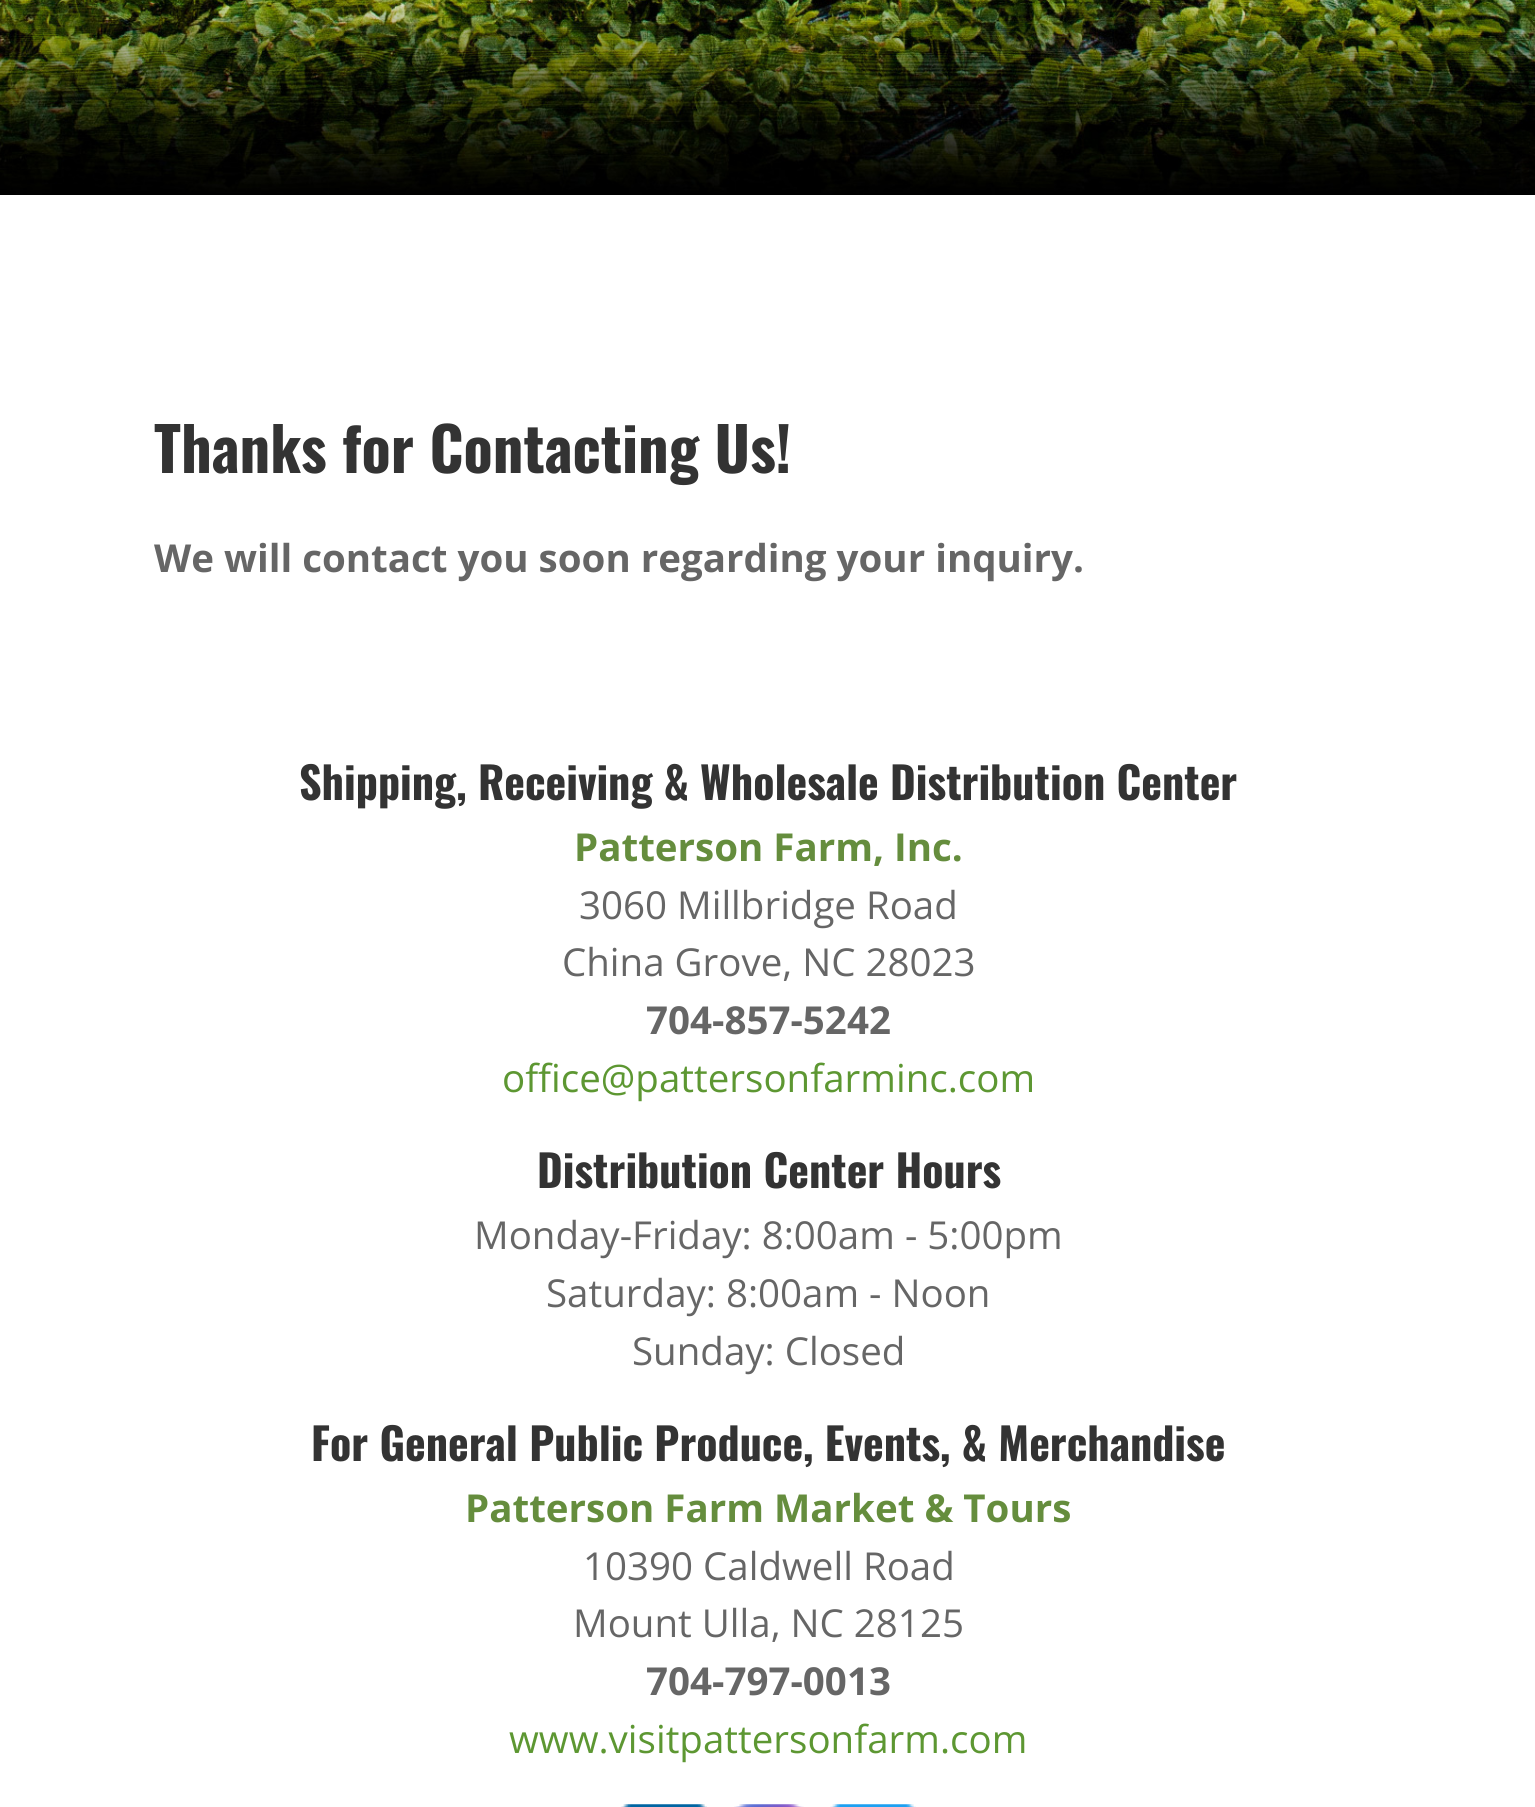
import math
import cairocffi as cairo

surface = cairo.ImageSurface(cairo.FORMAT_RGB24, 1535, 1807)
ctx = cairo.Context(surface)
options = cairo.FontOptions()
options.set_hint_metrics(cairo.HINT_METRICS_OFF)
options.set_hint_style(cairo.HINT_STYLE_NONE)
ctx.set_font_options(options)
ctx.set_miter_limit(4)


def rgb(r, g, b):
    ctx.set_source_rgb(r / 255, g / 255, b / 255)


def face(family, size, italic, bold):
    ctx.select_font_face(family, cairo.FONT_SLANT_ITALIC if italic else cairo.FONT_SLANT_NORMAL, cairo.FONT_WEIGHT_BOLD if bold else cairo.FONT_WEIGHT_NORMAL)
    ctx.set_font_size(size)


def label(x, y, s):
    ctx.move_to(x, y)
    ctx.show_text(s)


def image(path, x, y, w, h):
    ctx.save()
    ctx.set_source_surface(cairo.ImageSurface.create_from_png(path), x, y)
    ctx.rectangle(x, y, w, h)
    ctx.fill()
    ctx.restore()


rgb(255, 255, 255)
ctx.paint()
image('image0.png', 0, 0, 1535, 195)
face('Oswald', 60.5, 0, 1)
rgb(51, 51, 51)
label(154, 473, 'Thanks for Contacting Us!')
face('Open Sans', 38.5, 0, 1)
rgb(102, 102, 102)
label(154, 572, 'We will contact you soon regarding your inquiry.')
face('Oswald', 44, 0, 1)
rgb(51, 51, 51)
label(299, 800, 'Shipping, Receiving & Wholesale Distribution Center')
face('Open Sans', 38.5, 0, 1)
rgb(101, 141, 61)
label(574, 861, 'Patterson Farm, Inc.')
face('Open Sans', 38.5, 0, 0)
rgb(102, 102, 102)
label(579, 919, '3060 Millbridge Road')
label(562, 976, 'China Grove, NC 28023')
face('Open Sans', 38.5, 0, 1)
label(646, 1034, '704-857-5242')
face('Open Sans', 38.5, 0, 0)
rgb(93, 151, 50)
label(502, 1092, 'office@pattersonfarminc.com')
face('Oswald', 44, 0, 1)
rgb(51, 51, 51)
label(537, 1188, 'Distribution Center Hours')
face('Open Sans', 38.5, 0, 0)
rgb(102, 102, 102)
label(474, 1249, 'Monday-Friday: 8:00am - 5:00pm')
label(546, 1307, 'Saturday: 8:00am - Noon')
label(632, 1365, 'Sunday: Closed')
face('Oswald', 44, 0, 1)
rgb(51, 51, 51)
label(311, 1461, 'For General Public Produce, Events, & Merchandise')
face('Open Sans', 38.5, 0, 1)
rgb(101, 141, 61)
label(465, 1522, 'Patterson Farm Market & Tours')
face('Open Sans', 38.5, 0, 0)
rgb(102, 102, 102)
label(583, 1580, '10390 Caldwell Road')
label(573, 1637, 'Mount Ulla, NC 28125')
face('Open Sans', 38.5, 0, 1)
label(646, 1695, '704-797-0013')
face('Open Sans', 38.5, 0, 0)
rgb(93, 151, 50)
label(509, 1753, 'www.visitpattersonfarm.com')
image('image1.png', 621, 1804, 86, 3)
image('image2.png', 734, 1804, 70, 3)
image('image3.png', 830, 1804, 86, 3)
surface.write_to_png('render.png')
